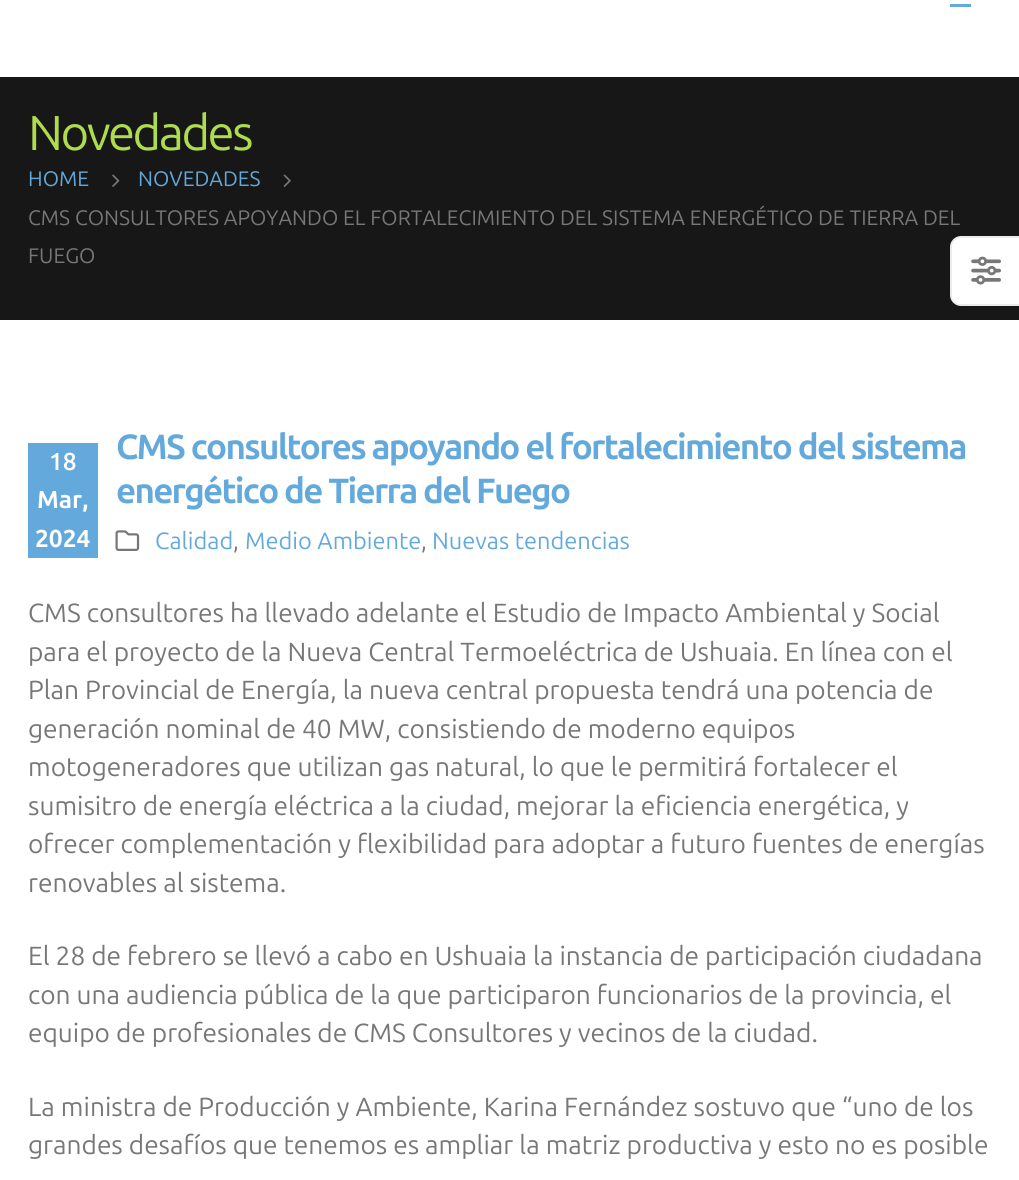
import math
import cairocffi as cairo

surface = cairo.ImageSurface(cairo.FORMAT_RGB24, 1019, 1180)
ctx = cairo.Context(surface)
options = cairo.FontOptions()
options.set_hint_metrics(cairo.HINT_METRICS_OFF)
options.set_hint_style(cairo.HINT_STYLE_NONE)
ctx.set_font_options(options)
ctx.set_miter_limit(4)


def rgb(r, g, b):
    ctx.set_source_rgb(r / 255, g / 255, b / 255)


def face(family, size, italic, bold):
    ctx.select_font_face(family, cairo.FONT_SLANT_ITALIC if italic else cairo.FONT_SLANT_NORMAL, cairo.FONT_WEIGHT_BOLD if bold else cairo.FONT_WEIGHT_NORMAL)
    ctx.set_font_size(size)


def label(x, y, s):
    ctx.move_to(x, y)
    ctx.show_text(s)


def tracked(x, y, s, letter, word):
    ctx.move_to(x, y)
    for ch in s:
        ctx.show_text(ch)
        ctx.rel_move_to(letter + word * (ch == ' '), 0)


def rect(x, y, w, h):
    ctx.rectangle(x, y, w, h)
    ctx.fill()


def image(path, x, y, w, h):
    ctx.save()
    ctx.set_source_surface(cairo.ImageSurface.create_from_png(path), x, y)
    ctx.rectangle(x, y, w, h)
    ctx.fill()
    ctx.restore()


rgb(255, 255, 255)
ctx.paint()
rgb(99, 169, 220)
rect(950, 4, 21, 3)
rgb(23, 23, 23)
rect(0, 77, 1019, 243)
face('Ubuntu', 49, 0, 0)
rgb(174, 220, 77)
tracked(28, 150, 'Novedades', -2.5, 0)
face('Ubuntu', 21, 0, 0)
rgb(99, 169, 220)
label(28, 186, 'HOME')
image('image0.png', 112, 174, 8, 13)
label(138, 186, 'NOVEDADES')
image('image1.png', 283, 174, 8, 13)
rgb(119, 119, 119)
label(28, 225, 'CMS CONSULTORES APOYANDO EL FORTALECIMIENTO DEL SISTEMA ENERGÉTICO DE TIERRA DEL')
label(28, 263, 'FUEGO')
rgb(255, 255, 255)
ctx.new_path()
ctx.move_to(961, 236)
ctx.line_to(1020, 236)
ctx.line_to(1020, 306)
ctx.line_to(961, 306)
ctx.curve_to(955, 306, 950, 301, 950, 295)
ctx.line_to(950, 247)
ctx.curve_to(950, 241, 955, 236, 961, 236)
ctx.close_path()
ctx.fill()
ctx.set_source_rgba(0, 0, 0, 0.08)
ctx.set_fill_rule(cairo.FILL_RULE_EVEN_ODD)
ctx.new_path()
ctx.move_to(961, 236)
ctx.line_to(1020, 236)
ctx.line_to(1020, 306)
ctx.line_to(961, 306)
ctx.curve_to(955, 306, 950, 302, 950, 296)
ctx.line_to(950, 247)
ctx.curve_to(950, 241, 955, 236, 961, 236)
ctx.close_path()
ctx.move_to(961, 238)
ctx.line_to(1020, 238)
ctx.line_to(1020, 304)
ctx.line_to(961, 304)
ctx.curve_to(956, 304, 952, 301, 952, 296)
ctx.line_to(952, 247)
ctx.curve_to(952, 242, 956, 238, 961, 238)
ctx.close_path()
ctx.fill()
image('image2.png', 971, 256, 30, 29)
face('Ubuntu', 35, 0, 1)
rgb(99, 169, 220)
tracked(116, 459, 'CMS consultores apoyando el fortalecimiento del sistema', -1.75, 0)
tracked(116, 503, 'energético de Tierra del Fuego', -1.75, 0)
image('image3.png', 115, 530, 25, 21)
face('Ubuntu', 23.6, 0, 0)
label(155, 549, 'Calidad')
rgb(119, 119, 119)
label(233, 549, ',')
rgb(99, 169, 220)
label(245, 549, 'Medio Ambiente')
rgb(119, 119, 119)
label(421, 549, ',')
rgb(99, 169, 220)
label(432, 549, 'Nuevas tendencias')
face('Ubuntu', 26.25, 0, 0)
rgb(119, 119, 119)
label(28, 622, 'CMS consultores ha llevado adelante el Estudio de Impacto Ambiental y Social')
label(28, 661, 'para el proyecto de la Nueva Central Termoeléctrica de Ushuaia. En línea con el')
label(28, 699, 'Plan Provincial de Energía, la nueva central propuesta tendrá una potencia de')
label(28, 738, 'generación nominal de 40 MW, consistiendo de moderno equipos')
label(28, 776, 'motogeneradores que utilizan gas natural, lo que le permitirá fortalecer el')
label(28, 815, 'sumisitro de energía eléctrica a la ciudad, mejorar la eficiencia energética, y')
label(28, 853, 'ofrecer complementación y flexibilidad para adoptar a futuro fuentes de energías')
label(28, 892, 'renovables al sistema.')
label(28, 965, 'El 28 de febrero se llevó a cabo en Ushuaia la instancia de participación ciudadana')
label(28, 1004, 'con una audiencia pública de la que participaron funcionarios de la provincia, el')
label(28, 1042, 'equipo de profesionales de CMS Consultores y vecinos de la ciudad.')
label(28, 1116, 'La ministra de Producción y Ambiente, Karina Fernández sostuvo que “uno de los')
label(28, 1154, 'grandes desafíos que tenemos es ampliar la matriz productiva y esto no es posible')
rgb(99, 169, 220)
rect(28, 443, 70, 115)
face('Ubuntu SemiBold', 24.5, 0, 0)
rgb(255, 255, 255)
label(49, 470, '18')
face('Ubuntu', 24.5, 0, 1)
label(37, 508, 'Mar,')
label(35, 547, '2024')
surface.write_to_png('render.png')
